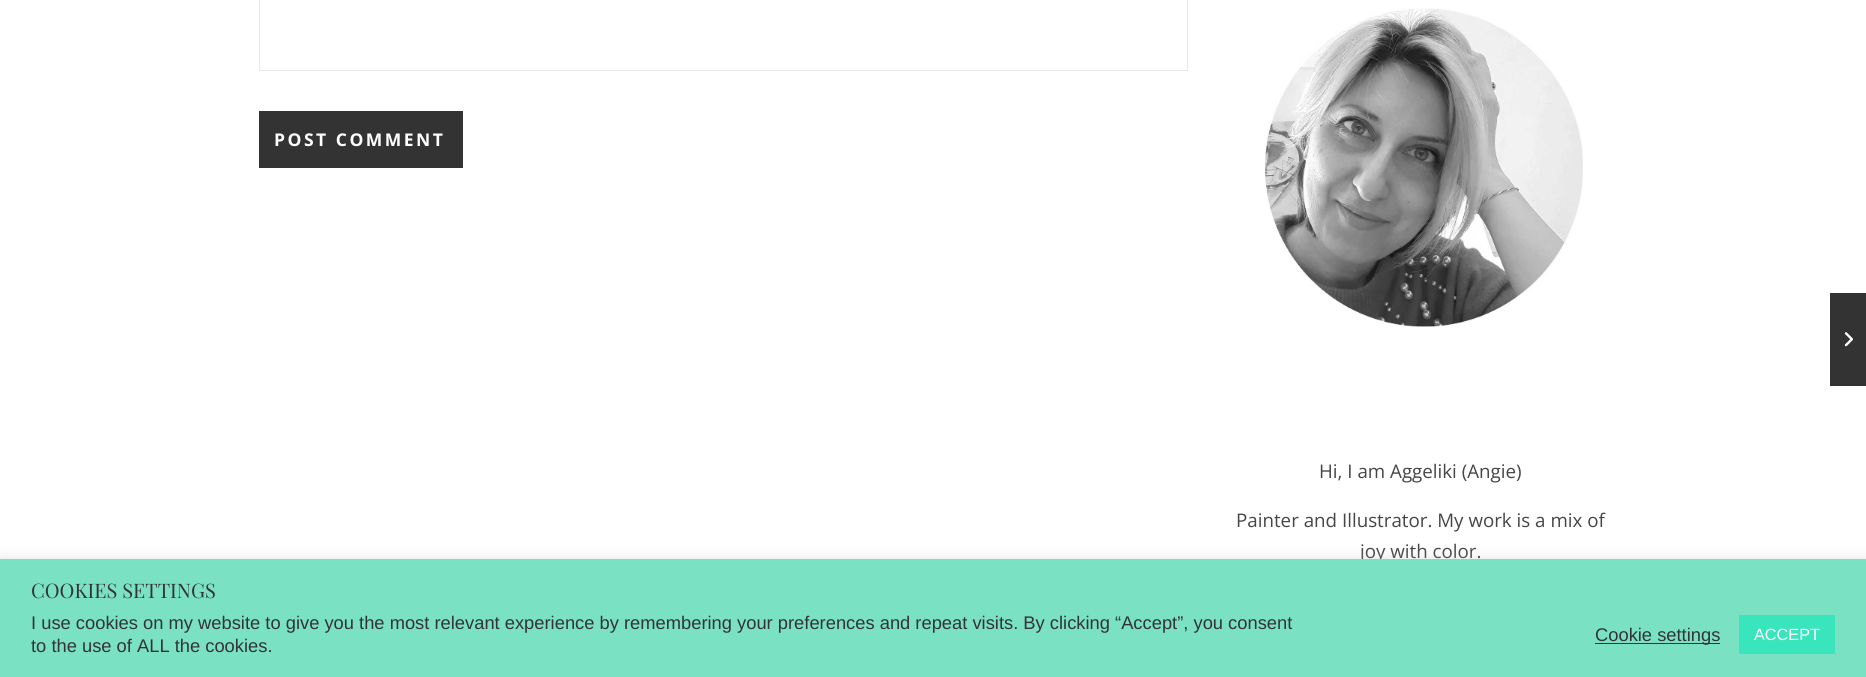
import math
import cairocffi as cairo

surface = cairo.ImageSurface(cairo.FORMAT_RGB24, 1866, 677)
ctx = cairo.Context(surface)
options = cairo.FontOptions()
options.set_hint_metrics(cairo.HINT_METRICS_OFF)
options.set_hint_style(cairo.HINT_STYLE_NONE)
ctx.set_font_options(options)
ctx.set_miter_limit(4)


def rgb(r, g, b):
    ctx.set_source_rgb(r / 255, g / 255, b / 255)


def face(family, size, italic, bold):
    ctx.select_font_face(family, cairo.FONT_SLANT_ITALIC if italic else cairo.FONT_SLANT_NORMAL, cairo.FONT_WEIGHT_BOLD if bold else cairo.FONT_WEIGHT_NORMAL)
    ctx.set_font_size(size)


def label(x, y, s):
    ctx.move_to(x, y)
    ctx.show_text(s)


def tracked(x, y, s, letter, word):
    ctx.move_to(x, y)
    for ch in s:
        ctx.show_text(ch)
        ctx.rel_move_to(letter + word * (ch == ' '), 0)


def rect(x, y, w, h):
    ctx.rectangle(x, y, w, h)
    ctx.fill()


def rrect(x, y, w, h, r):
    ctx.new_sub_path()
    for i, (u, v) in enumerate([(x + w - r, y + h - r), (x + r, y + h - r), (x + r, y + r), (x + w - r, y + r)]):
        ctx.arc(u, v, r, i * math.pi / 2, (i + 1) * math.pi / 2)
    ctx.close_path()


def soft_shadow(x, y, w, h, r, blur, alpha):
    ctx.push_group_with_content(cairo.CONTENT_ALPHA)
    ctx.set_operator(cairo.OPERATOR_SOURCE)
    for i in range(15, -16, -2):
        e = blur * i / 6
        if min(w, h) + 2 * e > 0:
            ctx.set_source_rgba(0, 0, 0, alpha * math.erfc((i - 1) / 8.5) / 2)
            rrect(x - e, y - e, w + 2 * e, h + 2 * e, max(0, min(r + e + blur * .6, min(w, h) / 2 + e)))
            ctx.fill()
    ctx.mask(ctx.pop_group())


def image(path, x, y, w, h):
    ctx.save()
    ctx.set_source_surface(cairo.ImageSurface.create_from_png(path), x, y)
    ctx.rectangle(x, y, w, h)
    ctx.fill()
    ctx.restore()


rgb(255, 255, 255)
ctx.paint()
ctx.rectangle(259.5, -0.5, 928, 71)
rgb(232, 232, 232)
ctx.set_line_width(1)
ctx.stroke()
rgb(51, 51, 51)
rect(259, 111, 204, 57)
face('Open Sans', 17.5, 0, 1)
rgb(255, 255, 255)
tracked(274, 146, 'POST COMMENT', 2.5, 0)
rgb(51, 51, 51)
rect(1830, 293, 36, 93)
image('image0.png', 1844, 332, 9, 15)
image('image1.png', 1264, 8, 319, 319)
face('Open Sans', 18.75, 0, 0)
rgb(70, 70, 70)
label(1319, 478, 'Hi, I am Aggeliki (Angie)')
label(1236, 527, 'Painter and Illustrator. My work is a mix of')
label(1360, 558, 'joy with color.')
rgb(172, 171, 171)
soft_shadow(0, 558, 1866, 118, 0, 6, 0.3)
rgb(122, 226, 195)
rect(0, 559, 1866, 118)
face('Playfair Display', 20, 0, 0)
rgb(51, 51, 51)
label(31, 598, 'COOKIES SETTINGS')
face('Liberation Sans', 18.33, 0, 0)
label(31, 629, 'I use cookies on my website to give you the most relevant experience by remembering your preferences and repeat visits. By clicking “Accept”, you consent')
label(31, 652, 'to the use of ALL the cookies.')
rect(1595, 643, 125, 1)
label(1595, 641, 'Cookie settings')
rgb(57, 229, 189)
rect(1739, 615, 96, 39)
face('Liberation Sans', 16.25, 0, 0)
rgb(255, 255, 255)
label(1754, 640, 'ACCEPT')
surface.write_to_png('render.png')
